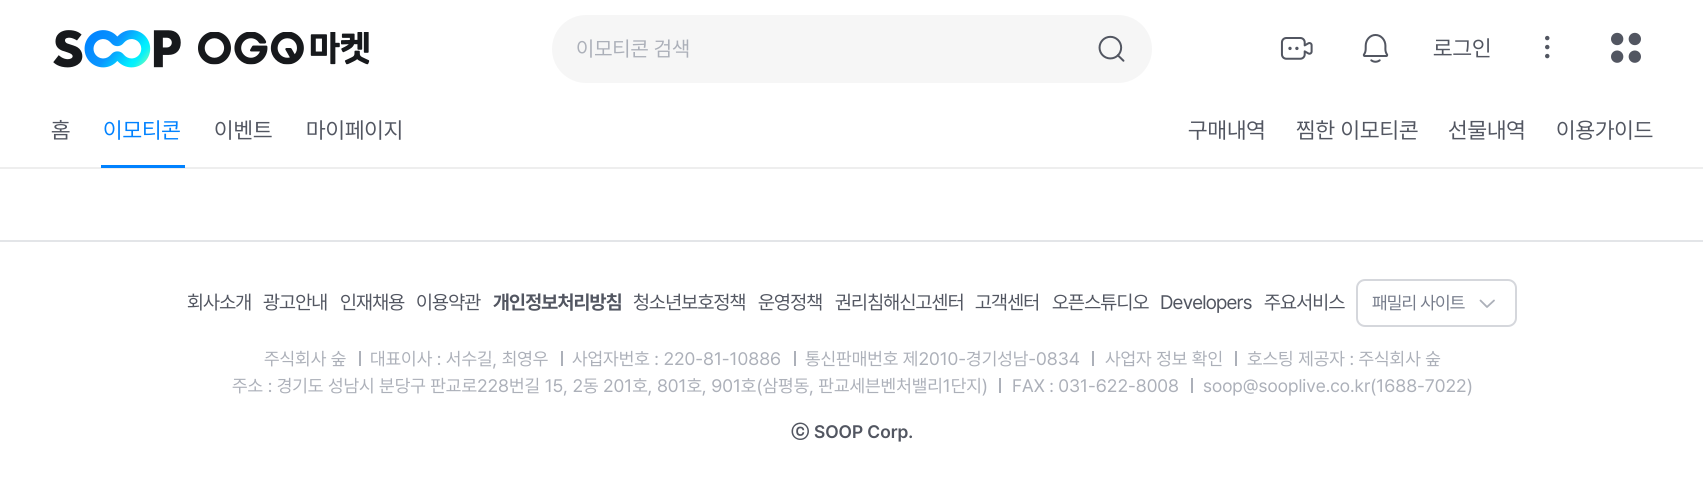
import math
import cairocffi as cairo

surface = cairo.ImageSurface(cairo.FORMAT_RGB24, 1703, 488)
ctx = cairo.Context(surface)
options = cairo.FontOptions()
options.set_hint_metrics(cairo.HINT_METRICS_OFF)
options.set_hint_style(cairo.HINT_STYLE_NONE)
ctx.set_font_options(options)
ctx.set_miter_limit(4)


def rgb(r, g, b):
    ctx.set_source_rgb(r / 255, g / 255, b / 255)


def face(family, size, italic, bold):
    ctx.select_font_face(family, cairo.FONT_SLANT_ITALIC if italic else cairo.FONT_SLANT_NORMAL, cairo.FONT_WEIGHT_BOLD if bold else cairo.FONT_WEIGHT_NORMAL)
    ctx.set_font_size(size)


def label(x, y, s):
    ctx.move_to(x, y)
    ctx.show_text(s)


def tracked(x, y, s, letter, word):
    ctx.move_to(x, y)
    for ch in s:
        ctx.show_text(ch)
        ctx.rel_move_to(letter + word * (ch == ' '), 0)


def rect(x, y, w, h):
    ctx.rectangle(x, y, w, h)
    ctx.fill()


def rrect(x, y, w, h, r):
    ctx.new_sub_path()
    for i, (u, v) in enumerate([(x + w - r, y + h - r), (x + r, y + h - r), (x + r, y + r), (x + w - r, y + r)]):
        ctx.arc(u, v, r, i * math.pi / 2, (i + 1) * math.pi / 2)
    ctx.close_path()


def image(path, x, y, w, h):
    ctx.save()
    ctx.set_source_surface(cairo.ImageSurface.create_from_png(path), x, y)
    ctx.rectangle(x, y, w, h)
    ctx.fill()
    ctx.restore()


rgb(255, 255, 255)
ctx.paint()
rgb(238, 238, 238)
rect(0, 167, 1703, 2)
image('image0.png', 53, 30, 128, 38)
image('image1.png', 198, 32, 172, 33)
rgb(246, 246, 246)
rrect(552, 15, 600, 68, 34)
ctx.fill()
face('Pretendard', 21, 0, 0)
rgb(172, 176, 185)
label(576, 56, '이모티콘 검색')
image('image2.png', 1098, 35, 27, 27)
image('image3.png', 1280, 37, 33, 23)
image('image4.png', 1362, 34, 27, 29)
face('Pretendard', 22.5, 0, 0)
rgb(82, 86, 97)
label(1433, 56, '로그인')
image('image5.png', 1545, 35, 5, 24)
image('image6.png', 1611, 32, 30, 31)
label(51, 138, '홈')
rgb(1, 130, 255)
label(103, 138, '이모티콘')
rect(101, 165, 84, 3)
rgb(82, 86, 97)
label(214, 138, '이벤트')
label(306, 138, '마이페이지')
label(1188, 138, '구매내역')
label(1296, 138, '찜한 이모티콘')
label(1448, 138, '선물내역')
label(1556, 138, '이용가이드')
rgb(227, 229, 232)
rect(0, 240, 1703, 2)
face('Pretendard', 19.5, 0, 0)
rgb(82, 86, 97)
tracked(187, 309, '회사소개', -0.75, 0)
tracked(263, 309, '광고안내', -0.75, 0)
tracked(340, 309, '인재채용', -0.75, 0)
tracked(416, 309, '이용약관', -0.75, 0)
face('Pretendard', 19.5, 0, 1)
tracked(493, 309, '개인정보처리방침', -0.75, 0)
face('Pretendard', 19.5, 0, 0)
tracked(633, 309, '청소년보호정책', -0.75, 0)
tracked(758, 309, '운영정책', -0.75, 0)
tracked(835, 309, '권리침해신고센터', -0.75, 0)
tracked(975, 309, '고객센터', -0.75, 0)
tracked(1052, 309, '오픈스튜디오', -0.75, 0)
tracked(1160, 309, 'Developers', -0.75, 0)
tracked(1264, 309, '주요서비스', -0.75, 0)
rrect(1357, 280, 159, 46, 8)
rgb(213, 215, 220)
ctx.stroke()
face('Pretendard', 18, 0, 0)
rgb(117, 123, 138)
tracked(1372, 309, '패밀리 사이트', -0.75, 0)
ctx.new_path()
ctx.move_to(1494, 300.5)
ctx.line_to(1487, 307)
ctx.line_to(1480.5, 300.5)
rgb(172, 176, 185)
ctx.set_line_width(1.8)
ctx.set_line_cap(cairo.LINE_CAP_ROUND)
ctx.set_line_join(cairo.LINE_JOIN_ROUND)
ctx.stroke()
label(264, 365, '주식회사 숲')
rect(359, 351, 2, 15)
label(370, 365, '대표이사 : 서수길, 최영우')
rect(561, 351, 2, 15)
label(572, 365, '사업자번호 : 220-81-10886')
rect(794, 351, 2, 15)
label(805, 365, '통신판매번호 제2010-경기성남-0834')
rect(1092, 351, 2, 15)
label(1105, 365, '사업자 정보 확인')
rect(1235, 351, 2, 15)
label(1247, 365, '호스팅 제공자 : 주식회사 숲')
label(232, 392, '주소 : 경기도 성남시 분당구 판교로228번길 15, 2동 201호, 801호, 901호(삼평동, 판교세븐벤처밸리1단지)')
rect(999, 378, 2, 15)
label(1012, 392, 'FAX : 031-622-8008')
rect(1191, 378, 2, 15)
label(1203, 392, 'soop@sooplive.co.kr(1688-7022)')
face('WenQuanYi Zen Hei', 18, 0, 1)
rgb(82, 86, 97)
label(791, 438, 'ⓒ')
face('Pretendard SemiBold', 18, 0, 0)
label(814, 438, 'SOOP Corp.')
surface.write_to_png('render.png')
